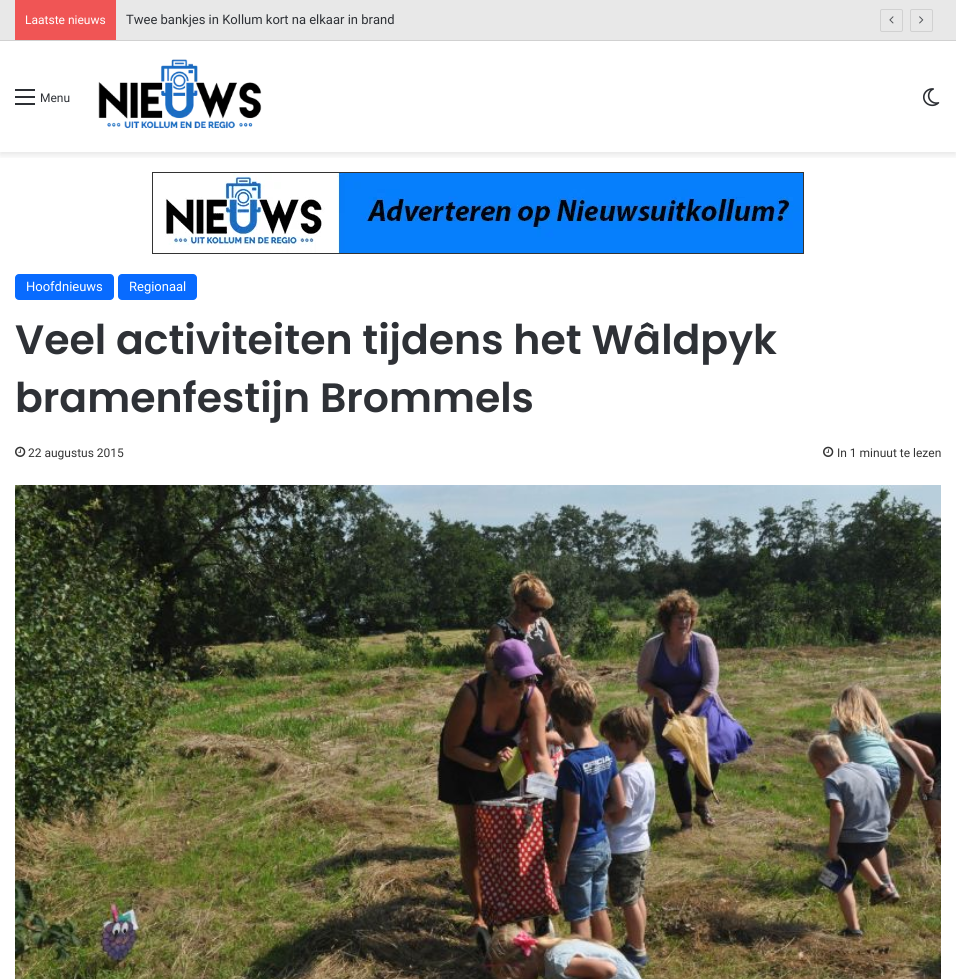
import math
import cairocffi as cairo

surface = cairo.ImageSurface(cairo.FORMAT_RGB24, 956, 979)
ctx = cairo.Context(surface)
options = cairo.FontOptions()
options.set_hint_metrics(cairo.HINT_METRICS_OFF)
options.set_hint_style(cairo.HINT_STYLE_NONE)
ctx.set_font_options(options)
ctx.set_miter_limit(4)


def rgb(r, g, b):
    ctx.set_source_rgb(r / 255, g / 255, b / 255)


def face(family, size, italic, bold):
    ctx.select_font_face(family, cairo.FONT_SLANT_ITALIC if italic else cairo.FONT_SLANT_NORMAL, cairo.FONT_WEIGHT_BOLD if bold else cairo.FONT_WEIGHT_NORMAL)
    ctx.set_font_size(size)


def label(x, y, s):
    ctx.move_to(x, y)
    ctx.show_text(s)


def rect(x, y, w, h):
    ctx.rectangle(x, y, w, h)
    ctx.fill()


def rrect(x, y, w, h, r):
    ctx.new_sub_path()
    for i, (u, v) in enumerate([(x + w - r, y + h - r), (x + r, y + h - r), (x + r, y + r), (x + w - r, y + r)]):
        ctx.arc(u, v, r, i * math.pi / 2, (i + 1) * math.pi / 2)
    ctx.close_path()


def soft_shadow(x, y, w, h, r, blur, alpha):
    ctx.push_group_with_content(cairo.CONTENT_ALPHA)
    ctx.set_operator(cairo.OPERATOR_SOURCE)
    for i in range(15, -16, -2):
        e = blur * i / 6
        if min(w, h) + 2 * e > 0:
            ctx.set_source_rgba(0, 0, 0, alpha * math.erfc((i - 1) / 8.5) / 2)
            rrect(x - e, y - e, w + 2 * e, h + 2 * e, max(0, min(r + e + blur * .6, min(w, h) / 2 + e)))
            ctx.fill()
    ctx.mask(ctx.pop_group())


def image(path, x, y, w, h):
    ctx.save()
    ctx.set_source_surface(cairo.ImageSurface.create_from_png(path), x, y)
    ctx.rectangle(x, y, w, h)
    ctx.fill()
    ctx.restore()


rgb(255, 255, 255)
ctx.paint()
ctx.save()
ctx.rectangle(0, 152, 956, 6)
ctx.clip()
rgb(0, 0, 0)
soft_shadow(0, 44, 956, 111, 0, 3.5, 0.1)
ctx.restore()
rgb(232, 232, 232)
rect(0, 0, 956, 40)
rgb(209, 209, 209)
rect(0, 40, 956, 1)
rgb(240, 85, 85)
rect(15, 0, 101, 40)
face('Roboto', 12, 0, 0)
rgb(255, 255, 255)
label(25, 24, 'Laatste nieuws')
face('Roboto', 13, 0, 0)
rgb(46, 49, 54)
label(126, 24, 'Twee bankjes in Kollum kort na elkaar in brand')
rrect(880.5, 9.5, 22, 22, 1.5)
rgb(209, 209, 209)
ctx.set_line_width(1)
ctx.stroke()
image('image0.png', 889, 16, 5, 8)
rrect(910.5, 9.5, 22, 22, 1.5)
ctx.stroke()
image('image1.png', 919, 16, 5, 8)
rgb(44, 47, 52)
rect(15, 96, 20, 2)
rect(15, 89, 20, 2)
rect(15, 103, 20, 2)
face('Roboto', 12, 0, 0)
rgb(46, 49, 54)
label(40, 102, 'Menu')
image('image2.png', 98, 59, 164, 70)
image('image3.png', 923, 88, 17, 19)
ctx.rectangle(152.5, 172.5, 651, 81)
rgb(51, 51, 51)
ctx.stroke()
image('image4.png', 165, 173, 638, 80)
rgb(8, 107, 255)
rrect(15, 274, 99, 26, 4)
ctx.fill()
face('Roboto', 13, 0, 0)
rgb(255, 255, 255)
label(26, 291, 'Hoofdnieuws')
rgb(8, 107, 255)
rrect(118, 274, 79, 26, 4)
ctx.fill()
rgb(255, 255, 255)
label(129, 291, 'Regionaal')
face('Poppins SemiBold', 41, 0, 0)
rgb(46, 49, 54)
label(15, 354, 'Veel activiteiten tijdens het Wâldpyk')
label(15, 412, 'bramenfestijn Brommels')
image('image5.png', 15, 446, 11, 11)
face('Roboto', 12, 0, 0)
rgb(53, 53, 53)
label(28, 457, '22 augustus 2015')
image('image5.png', 823, 446, 11, 11)
label(837, 457, 'In 1 minuut te lezen')
image('image6.png', 15, 485, 926, 494)
surface.write_to_png('render.png')
